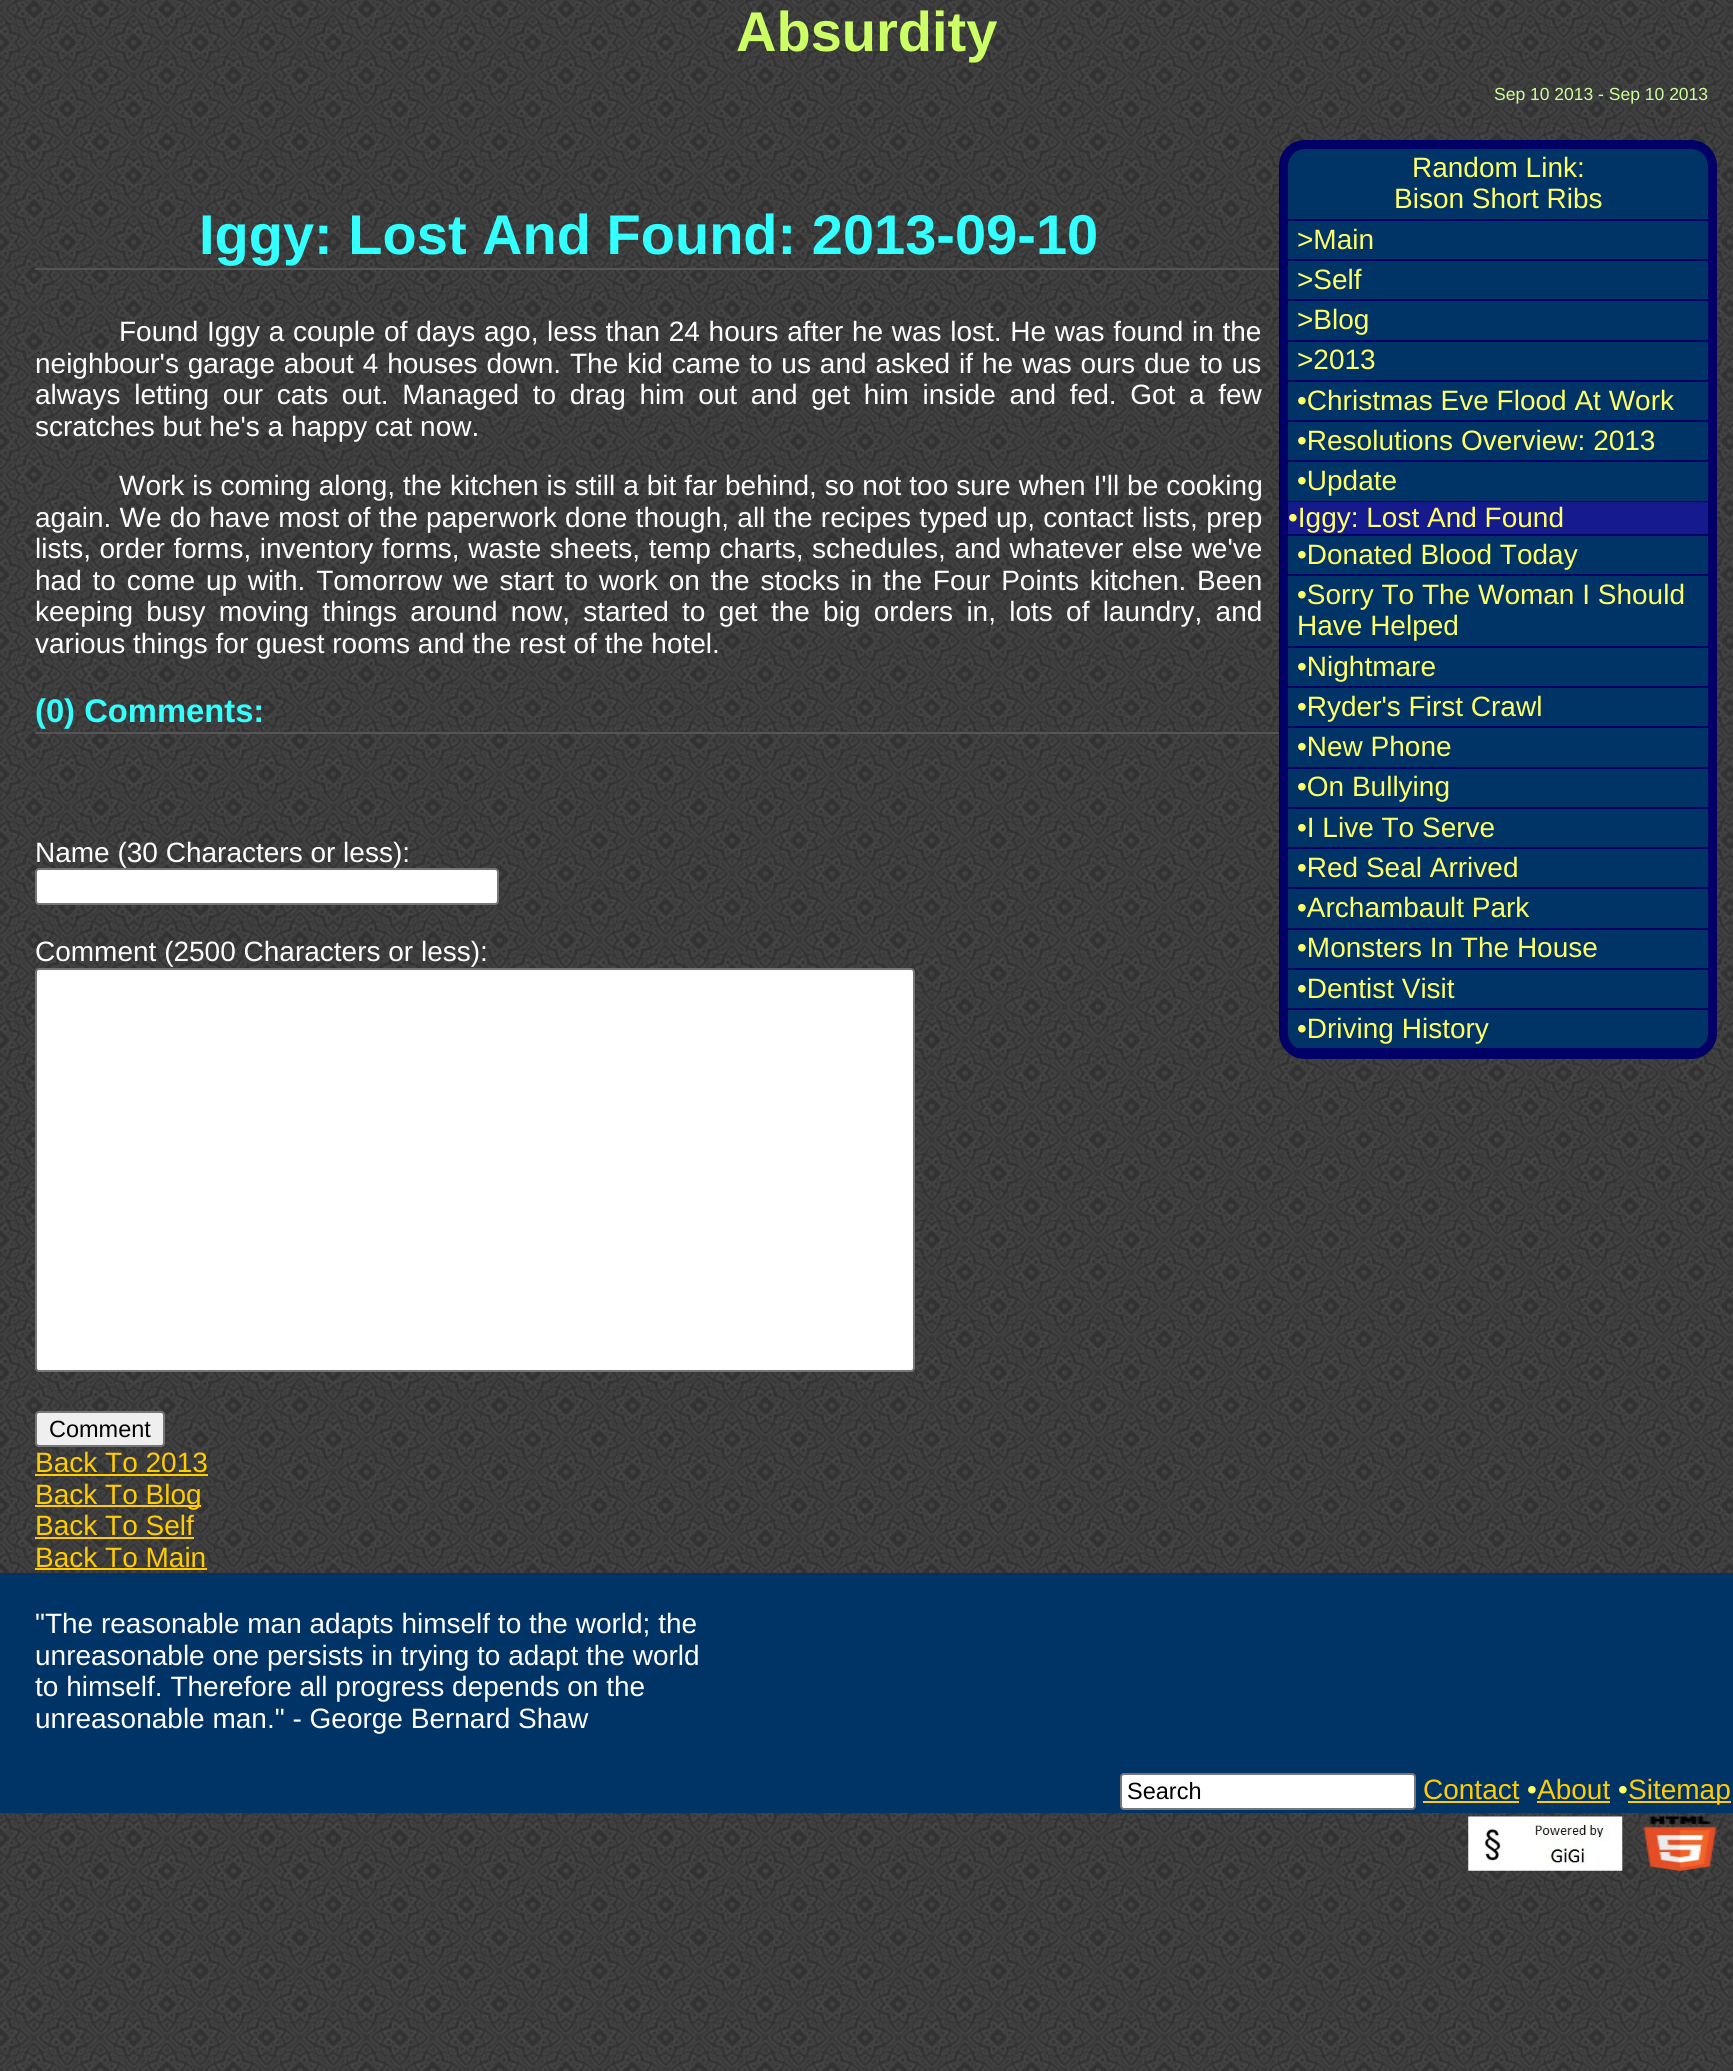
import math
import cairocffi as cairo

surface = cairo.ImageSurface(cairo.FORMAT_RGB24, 1733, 2071)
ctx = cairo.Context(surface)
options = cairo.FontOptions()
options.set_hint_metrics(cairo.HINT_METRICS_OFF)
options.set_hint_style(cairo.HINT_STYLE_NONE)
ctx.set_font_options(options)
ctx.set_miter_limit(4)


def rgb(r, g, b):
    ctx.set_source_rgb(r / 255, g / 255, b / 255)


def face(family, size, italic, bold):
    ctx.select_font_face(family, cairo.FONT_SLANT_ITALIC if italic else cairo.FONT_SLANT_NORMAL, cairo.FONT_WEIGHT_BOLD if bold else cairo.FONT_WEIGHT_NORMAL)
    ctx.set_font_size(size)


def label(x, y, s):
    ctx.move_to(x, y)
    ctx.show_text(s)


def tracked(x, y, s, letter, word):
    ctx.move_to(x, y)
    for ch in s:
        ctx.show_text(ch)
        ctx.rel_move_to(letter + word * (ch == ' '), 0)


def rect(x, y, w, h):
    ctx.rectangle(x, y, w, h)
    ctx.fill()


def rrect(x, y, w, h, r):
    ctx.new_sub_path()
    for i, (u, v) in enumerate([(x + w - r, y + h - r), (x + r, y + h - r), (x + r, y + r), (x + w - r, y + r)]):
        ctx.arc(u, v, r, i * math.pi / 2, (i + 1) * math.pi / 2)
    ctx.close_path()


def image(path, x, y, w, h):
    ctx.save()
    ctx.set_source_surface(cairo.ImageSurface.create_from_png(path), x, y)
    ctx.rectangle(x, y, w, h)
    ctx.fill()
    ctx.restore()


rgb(255, 255, 255)
ctx.paint()
image('image0.png', 0, 0, 1733, 2071)
face('Liberation Sans', 56, 0, 1)
rgb(204, 255, 102)
label(736, 51, 'Absurdity')
face('Liberation Sans', 17.5, 0, 0)
rgb(204, 255, 153)
label(1494, 100, 'Sep 10 2013 - Sep 10 2013')
rgb(85, 85, 85)
rect(35, 268, 1244, 2)
face('Liberation Sans', 56, 0, 1)
rgb(51, 255, 255)
label(199, 254, 'Iggy: Lost And Found: 2013-09-10')
face('Liberation Sans', 28, 0, 0)
rgb(255, 255, 255)
tracked(119, 341, 'Found Iggy a couple of days ago, less than 24 hours after he was lost. He was found in the', 0, 0.9)
tracked(35, 373, 'neighbour\'s garage about 4 houses down. The kid came to us and asked if he was ours due to us', 0, 1.1)
tracked(35, 404, 'always letting our cats out. Managed to drag him out and get him inside and fed. Got a few', 0, 5.9)
label(35, 436, 'scratches but he\'s a happy cat now.')
tracked(119, 495, 'Work is coming along, the kitchen is still a bit far behind, so not too sure when I\'ll be cooking', 0, 0.2)
tracked(35, 527, 'again. We do have most of the paperwork done though, all the recipes typed up, contact lists, prep', 0, 0.5)
tracked(35, 558, 'lists, order forms, inventory forms, waste sheets, temp charts, schedules, and whatever else we\'ve', 0, 0.75)
tracked(35, 590, 'had to come up with. Tomorrow we start to work on the stocks in the Four Points kitchen. Been', 0, 3)
tracked(35, 621, 'keeping busy moving things around now, started to get the big orders in, lots of laundry, and', 0, 5.5)
label(35, 653, 'various things for guest rooms and the rest of the hotel.')
rgb(85, 85, 85)
rect(35, 732, 1244, 2)
face('Liberation Sans', 32.75, 0, 1)
rgb(51, 255, 255)
label(35, 722, '(0) Comments:')
face('Liberation Sans', 28, 0, 0)
rgb(255, 255, 255)
label(35, 862, 'Name (30 Characters or less):')
rrect(36, 869, 462, 35, 3)
ctx.fill_preserve()
rgb(118, 118, 118)
ctx.stroke()
rgb(255, 255, 255)
label(35, 961, 'Comment (2500 Characters or less):')
rrect(36, 969, 878, 402, 3)
ctx.fill_preserve()
rgb(118, 118, 118)
ctx.stroke()
rgb(239, 239, 239)
rrect(36, 1412, 128, 34, 3)
ctx.fill_preserve()
rgb(118, 118, 118)
ctx.stroke()
face('Liberation Sans', 23.5, 0, 0)
rgb(0, 0, 0)
label(49, 1437, 'Comment')
face('Liberation Sans', 28, 0, 0)
rgb(255, 204, 0)
label(35, 1472, 'Back To 2013')
rect(35, 1474, 173, 2)
rect(35, 1505, 166, 2)
label(35, 1504, 'Back To Blog')
label(35, 1535, 'Back To Self')
rect(35, 1537, 159, 2)
label(35, 1567, 'Back To Main')
rect(35, 1568, 172, 2)
rgb(0, 51, 102)
rrect(1283.5, 144.5, 429, 910, 21.5)
ctx.fill_preserve()
rgb(0, 0, 102)
ctx.set_line_width(9)
ctx.stroke()
rect(1288, 219, 420, 2)
rgb(255, 255, 102)
label(1412, 177, 'Random Link:')
label(1394, 208, 'Bison Short Ribs')
rgb(0, 0, 102)
rect(1288, 259, 420, 2)
rgb(255, 255, 102)
label(1297, 249, '>Main')
rgb(0, 0, 102)
rect(1288, 299, 420, 2)
rgb(255, 255, 102)
label(1297, 289, '>Self')
rgb(0, 0, 102)
rect(1288, 340, 420, 2)
rgb(255, 255, 102)
label(1297, 329, '>Blog')
rgb(0, 0, 102)
rect(1288, 380, 420, 2)
rgb(255, 255, 102)
label(1297, 369, '>2013')
rgb(0, 0, 102)
rect(1288, 420, 420, 2)
rgb(255, 255, 102)
label(1297, 410, '•Christmas Eve Flood At Work')
rgb(0, 0, 102)
rect(1288, 460, 420, 2)
rgb(255, 255, 102)
label(1297, 450, '•Resolutions Overview: 2013')
rgb(0, 0, 102)
rect(1288, 501, 420, 1)
rgb(255, 255, 102)
label(1297, 490, '•Update')
rgb(21, 27, 141)
rect(1288, 502, 420, 32)
rgb(0, 0, 102)
rect(1288, 534, 420, 2)
rgb(255, 255, 102)
label(1288, 527, '•Iggy: Lost And Found')
rgb(0, 0, 102)
rect(1288, 574, 420, 2)
rgb(255, 255, 102)
label(1297, 564, '•Donated Blood Today')
rgb(0, 0, 102)
rect(1288, 646, 420, 2)
rgb(255, 255, 102)
label(1297, 604, '•Sorry To The Woman I Should')
label(1297, 635, 'Have Helped')
rgb(0, 0, 102)
rect(1288, 686, 420, 2)
rgb(255, 255, 102)
label(1297, 676, '•Nightmare')
rgb(0, 0, 102)
rect(1288, 726, 420, 2)
rgb(255, 255, 102)
label(1297, 716, '•Ryder\'s First Crawl')
rgb(0, 0, 102)
rect(1288, 767, 420, 2)
rgb(255, 255, 102)
label(1297, 756, '•New Phone')
rgb(0, 0, 102)
rect(1288, 807, 420, 2)
rgb(255, 255, 102)
label(1297, 796, '•On Bullying')
rgb(0, 0, 102)
rect(1288, 847, 420, 2)
rgb(255, 255, 102)
label(1297, 837, '•I Live To Serve')
rgb(0, 0, 102)
rect(1288, 887, 420, 2)
rgb(255, 255, 102)
label(1297, 877, '•Red Seal Arrived')
rgb(0, 0, 102)
rect(1288, 928, 420, 2)
rgb(255, 255, 102)
label(1297, 917, '•Archambault Park')
rgb(0, 0, 102)
rect(1288, 968, 420, 2)
rgb(255, 255, 102)
label(1297, 957, '•Monsters In The House')
rgb(0, 0, 102)
rect(1288, 1008, 420, 2)
rgb(255, 255, 102)
label(1297, 998, '•Dentist Visit')
rgb(0, 0, 102)
rect(1297, 1048, 402, 2)
rgb(255, 255, 102)
label(1297, 1038, '•Driving History')
rgb(0, 51, 102)
rect(0, 1573, 1733, 240)
rgb(255, 255, 255)
label(35, 1633, '"The reasonable man adapts himself to the world; the')
label(35, 1665, 'unreasonable one persists in trying to adapt the world')
label(35, 1696, 'to himself. Therefore all progress depends on the')
label(35, 1728, 'unreasonable man." - George Bernard Shaw')
rrect(1121, 1774, 294, 35, 3)
ctx.fill_preserve()
rgb(118, 118, 118)
ctx.set_line_width(2)
ctx.stroke()
face('Liberation Sans', 23.5, 0, 0)
rgb(0, 0, 0)
label(1127, 1799, 'Search')
face('Liberation Sans', 28, 0, 0)
rgb(255, 204, 0)
label(1423, 1799, 'Contact')
rect(1423, 1801, 96, 2)
rgb(255, 255, 102)
label(1527, 1799, '•')
rgb(255, 204, 0)
label(1537, 1799, 'About')
rect(1537, 1801, 73, 2)
rgb(255, 255, 102)
label(1618, 1799, '•')
rgb(255, 204, 0)
rect(1628, 1801, 103, 2)
label(1628, 1799, 'Sitemap')
image('image1.png', 1468, 1816, 155, 55)
image('image2.png', 1643, 1816, 74, 55)
surface.write_to_png('render.png')
